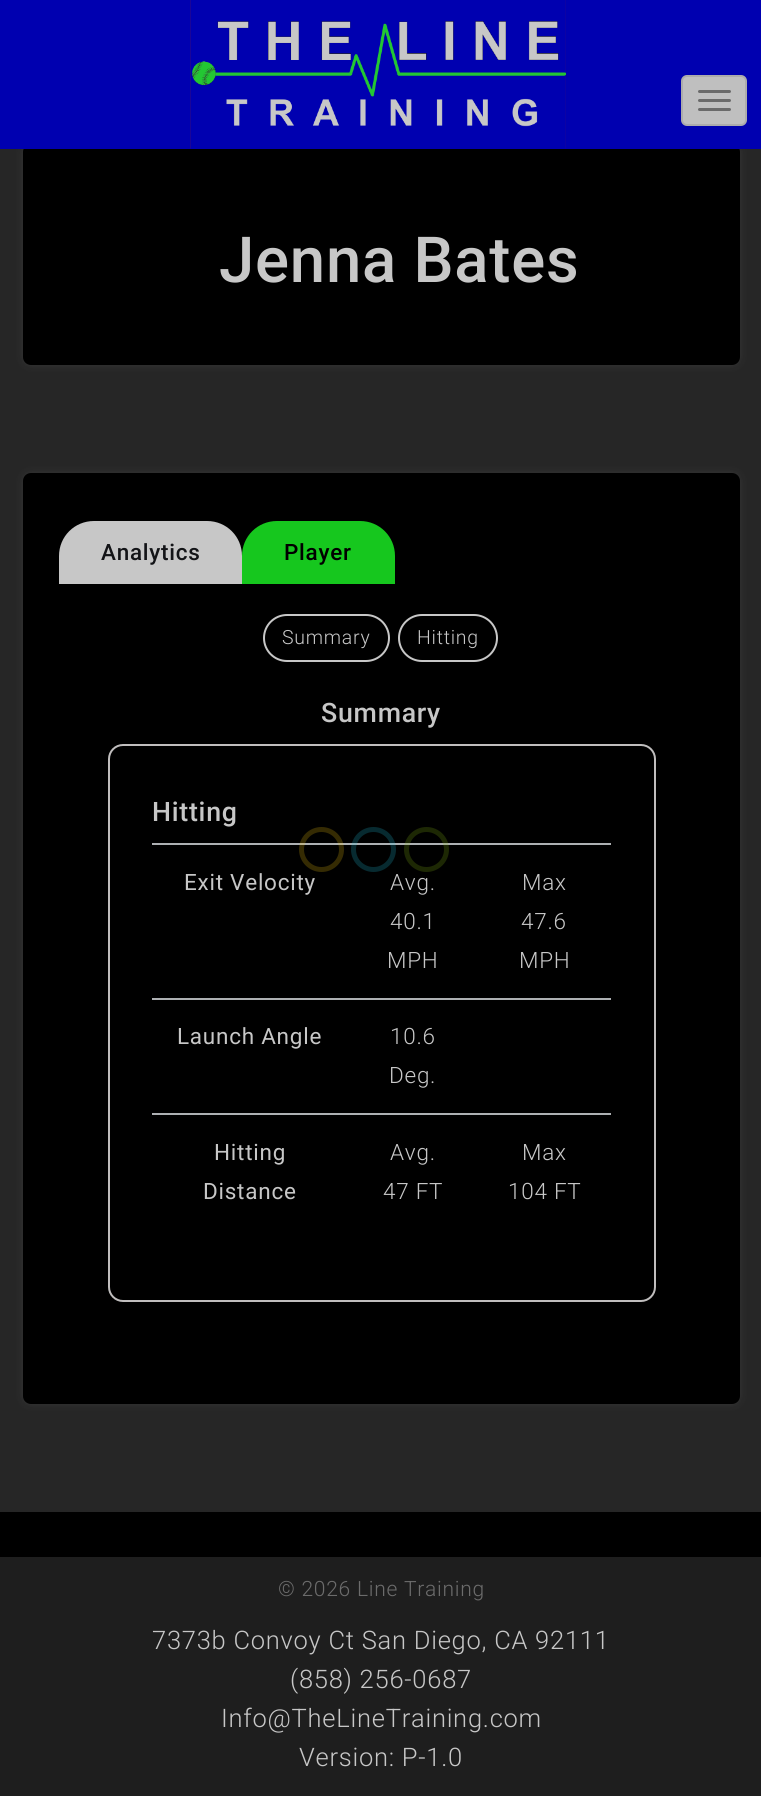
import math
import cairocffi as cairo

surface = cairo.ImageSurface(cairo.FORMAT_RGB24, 761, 1796)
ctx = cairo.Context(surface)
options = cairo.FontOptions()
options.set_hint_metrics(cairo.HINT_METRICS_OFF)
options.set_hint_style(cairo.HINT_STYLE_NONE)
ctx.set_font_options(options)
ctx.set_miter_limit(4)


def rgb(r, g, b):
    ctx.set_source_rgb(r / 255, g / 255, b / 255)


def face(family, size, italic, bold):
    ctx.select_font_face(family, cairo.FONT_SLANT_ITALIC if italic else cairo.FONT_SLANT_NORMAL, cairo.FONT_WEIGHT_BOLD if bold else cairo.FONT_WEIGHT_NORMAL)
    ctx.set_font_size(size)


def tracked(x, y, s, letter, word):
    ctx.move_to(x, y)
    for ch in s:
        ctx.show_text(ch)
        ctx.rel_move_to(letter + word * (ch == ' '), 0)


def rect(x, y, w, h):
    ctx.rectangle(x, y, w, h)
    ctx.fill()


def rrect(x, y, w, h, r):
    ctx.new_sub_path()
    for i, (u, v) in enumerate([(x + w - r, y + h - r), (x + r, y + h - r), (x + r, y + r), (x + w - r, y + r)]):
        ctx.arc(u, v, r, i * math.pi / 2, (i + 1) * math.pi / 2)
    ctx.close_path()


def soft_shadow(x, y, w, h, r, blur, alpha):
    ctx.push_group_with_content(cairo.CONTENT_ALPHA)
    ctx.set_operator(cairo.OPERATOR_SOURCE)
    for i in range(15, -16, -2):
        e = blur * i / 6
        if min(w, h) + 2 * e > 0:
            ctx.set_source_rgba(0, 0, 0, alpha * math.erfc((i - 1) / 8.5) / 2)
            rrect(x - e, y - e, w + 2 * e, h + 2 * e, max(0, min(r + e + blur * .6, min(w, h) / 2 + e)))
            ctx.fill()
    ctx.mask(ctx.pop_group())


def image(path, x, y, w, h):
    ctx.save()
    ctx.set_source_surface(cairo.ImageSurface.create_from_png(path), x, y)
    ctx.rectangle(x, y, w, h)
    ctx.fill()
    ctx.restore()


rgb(0, 0, 0)
ctx.paint()
rgb(38, 38, 38)
rect(0, 149, 761, 1363)
rgb(199, 199, 199)
soft_shadow(23, 144, 717, 221, 8, 4, 0.1)
rgb(0, 0, 0)
rrect(23, 144, 717, 221, 8)
ctx.fill()
rgb(0, 0, 176)
rect(0, 0, 761, 149)
image('image0.png', 190, 0, 376, 149)
rgb(191, 191, 191)
rrect(682, 76, 64, 49, 5)
ctx.fill_preserve()
rgb(172, 172, 172)
ctx.stroke()
rgb(106, 106, 106)
rrect(698, 90, 33, 3, 1.5)
ctx.fill()
rrect(698, 99, 33, 3, 1.5)
ctx.fill()
rrect(698, 108, 33, 3, 1.5)
ctx.fill()
face('Roboto Medium', 63.5, 0, 0)
rgb(199, 199, 199)
tracked(219, 282, 'Jenna Bates', 0.75, 0)
rgb(199, 199, 199)
soft_shadow(23, 473, 717, 931, 8, 4, 0.1)
rgb(0, 0, 0)
rrect(23, 473, 717, 931, 8)
ctx.fill()
rgb(199, 199, 199)
ctx.new_path()
ctx.move_to(94, 521)
ctx.line_to(207, 521)
ctx.curve_to(226.5, 521, 242, 536.5, 242, 556)
ctx.line_to(242, 584)
ctx.line_to(59, 584)
ctx.line_to(59, 556)
ctx.curve_to(59, 536.5, 74.5, 521, 94, 521)
ctx.close_path()
ctx.fill()
face('Roboto Medium', 22.5, 0, 0)
rgb(19, 20, 23)
tracked(101, 560, 'Analytics', 0.75, 0)
rgb(22, 199, 30)
ctx.new_path()
ctx.move_to(277, 521)
ctx.line_to(360, 521)
ctx.curve_to(379.5, 521, 395, 536.5, 395, 556)
ctx.line_to(395, 584)
ctx.line_to(242, 584)
ctx.line_to(242, 556)
ctx.curve_to(242, 536.5, 257.5, 521, 277, 521)
ctx.close_path()
ctx.fill()
rgb(0, 0, 0)
tracked(284, 560, 'Player', 0.75, 0)
rrect(264, 615, 125, 46, 23)
rgb(199, 199, 199)
ctx.stroke()
face('Roboto Light', 19.5, 0, 0)
tracked(282, 644, 'Summary', 0.75, 0)
rrect(399, 615, 98, 46, 23)
ctx.stroke()
tracked(417, 644, 'Hitting', 0.75, 0)
face('Roboto Medium', 26.75, 0, 0)
tracked(321, 722, 'Summary', 0.75, 0)
rrect(109, 745, 546, 556, 14)
rgb(192, 190, 190)
ctx.stroke()
rgb(199, 199, 199)
tracked(152, 821, 'Hitting', 0.75, 0)
face('Roboto', 22.5, 0, 0)
tracked(184, 890, 'Exit Velocity', 0.75, 0)
face('Roboto Light', 22.5, 0, 0)
tracked(390, 890, 'Avg.', 0.75, 0)
tracked(390, 929, '40.1', 0.75, 0)
tracked(387, 968, 'MPH', 0.75, 0)
rgb(173, 176, 179)
rect(152, 843, 459, 2)
rgb(199, 199, 199)
tracked(522, 890, 'Max', 0.75, 0)
tracked(521, 929, '47.6', 0.75, 0)
tracked(519, 968, 'MPH', 0.75, 0)
rgb(173, 176, 179)
rect(152, 998, 459, 2)
face('Roboto', 22.5, 0, 0)
rgb(199, 199, 199)
tracked(177, 1044, 'Launch Angle', 0.75, 0)
face('Roboto Light', 22.5, 0, 0)
tracked(390, 1044, '10.6', 0.75, 0)
tracked(389, 1083, 'Deg.', 0.75, 0)
face('Roboto', 22.5, 0, 0)
tracked(214, 1160, 'Hitting', 0.75, 0)
tracked(203, 1199, 'Distance', 0.75, 0)
face('Roboto Light', 22.5, 0, 0)
tracked(390, 1160, 'Avg.', 0.75, 0)
tracked(383, 1199, '47 FT', 0.75, 0)
rgb(173, 176, 179)
rect(152, 1113, 459, 2)
rgb(199, 199, 199)
tracked(522, 1160, 'Max', 0.75, 0)
tracked(508, 1199, '104 FT', 0.75, 0)
ctx.new_path()
ctx.arc(321.5, 849.5, 20, 0, 2 * math.pi)
ctx.set_source_rgba(0.945, 0.765, 0.059, 0.22)
ctx.set_line_width(5)
ctx.stroke()
ctx.arc(373.5, 849.5, 20, 0, 2 * math.pi)
ctx.set_source_rgba(0.141, 0.757, 0.867, 0.22)
ctx.stroke()
ctx.arc(426.5, 849.5, 20, 0, 2 * math.pi)
ctx.set_source_rgba(0.518, 0.722, 0.075, 0.22)
ctx.stroke()
rgb(30, 30, 30)
rect(0, 1557, 761, 239)
face('Roboto Light', 21, 0, 0)
rgb(108, 108, 108)
tracked(278, 1596, '© 2026 Line Training', 0.75, 0)
face('Roboto Light', 25.5, 0, 0)
rgb(199, 199, 199)
tracked(152, 1649, '7373b Convoy Ct San Diego, CA 92111', 0.75, 0)
tracked(290, 1688, '(858) 256-0687', 0.75, 0)
tracked(221, 1727, 'Info@TheLineTraining.com', 0.75, 0)
tracked(299, 1766, 'Version: P-1.0', 0.75, 0)
surface.write_to_png('render.png')
